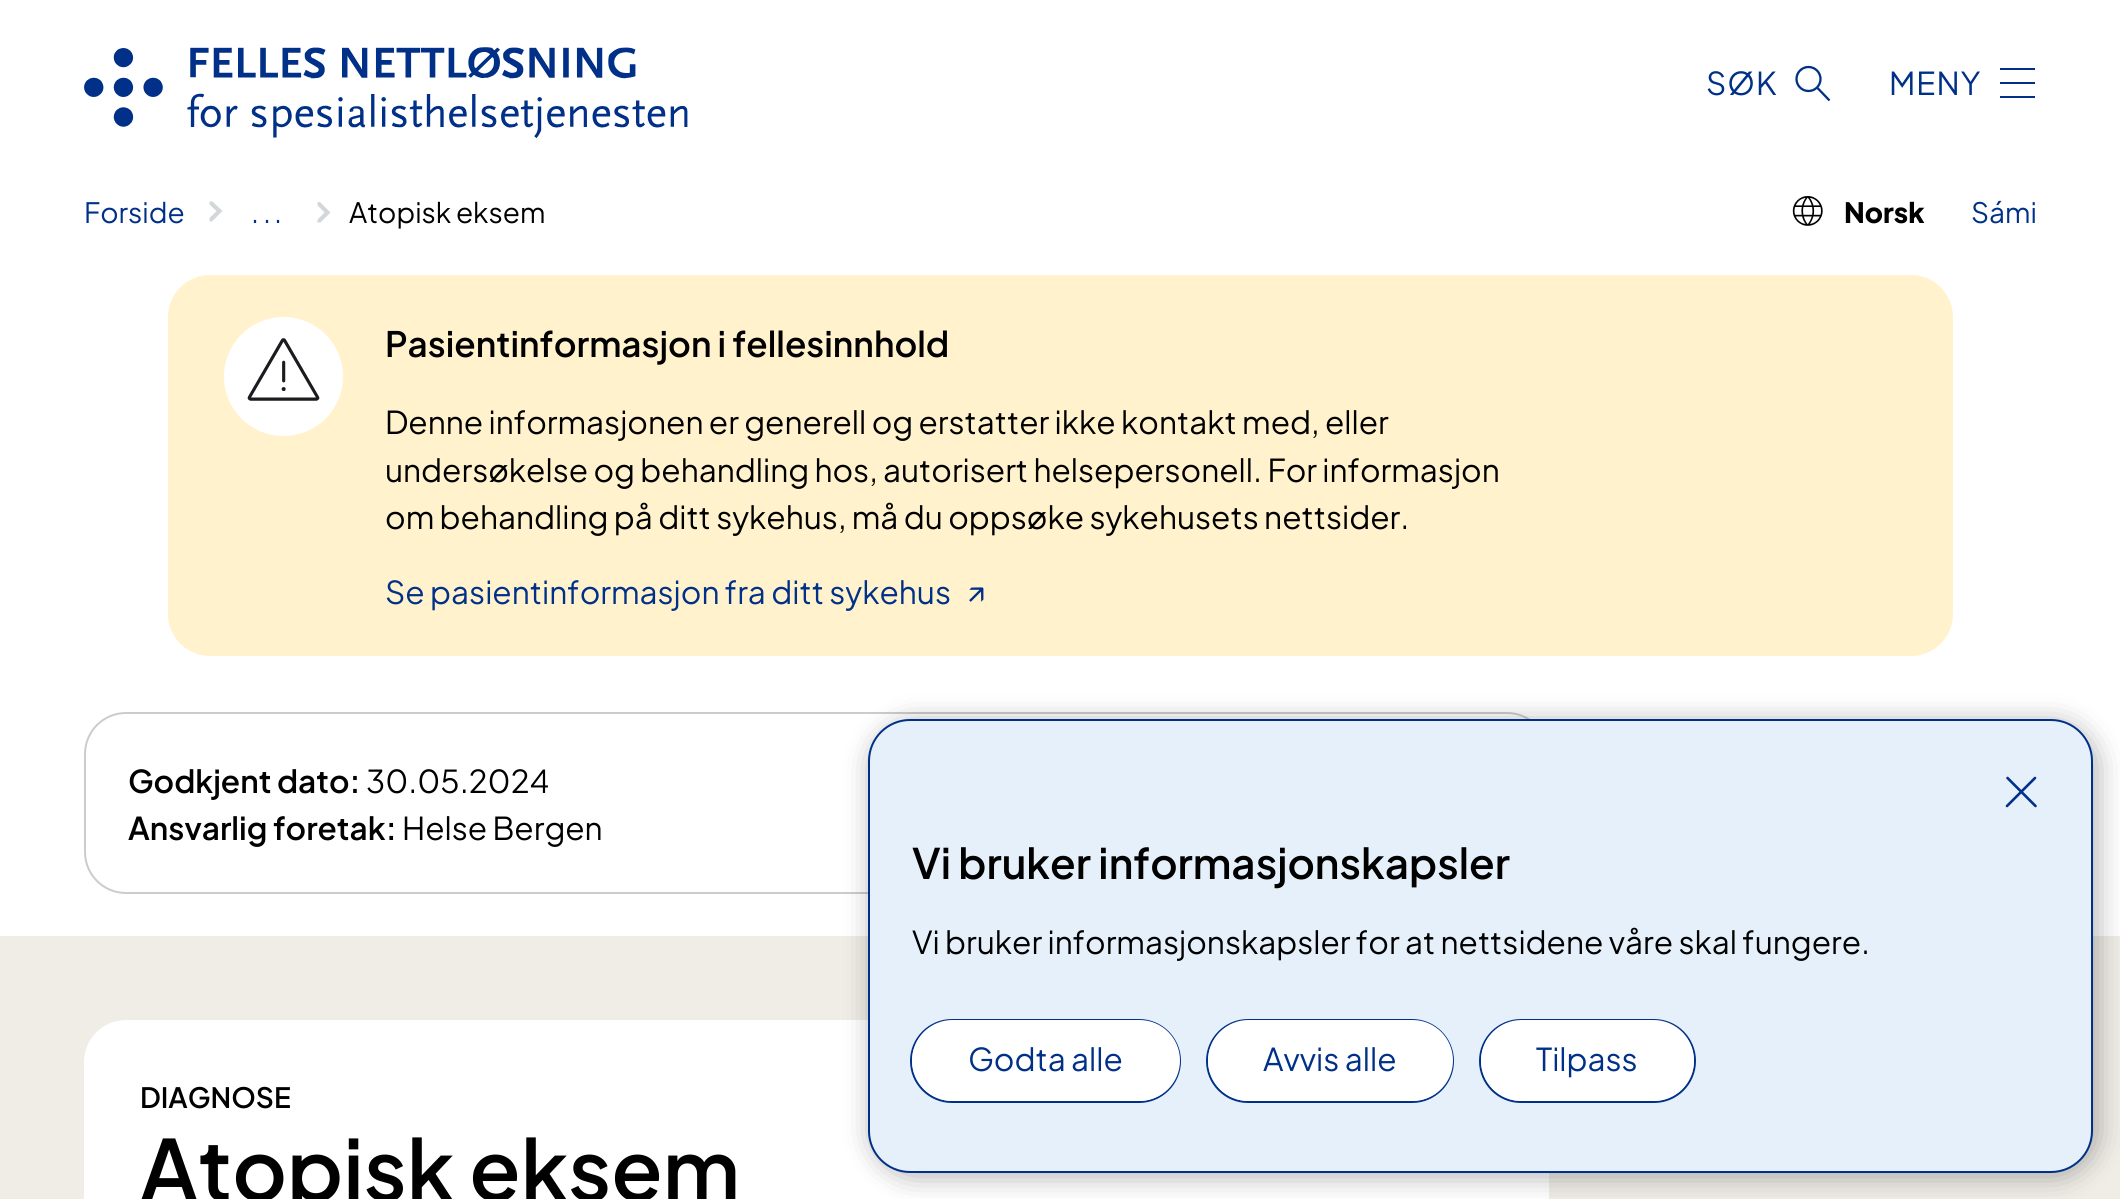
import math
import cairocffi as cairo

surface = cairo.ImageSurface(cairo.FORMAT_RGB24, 2120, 1199)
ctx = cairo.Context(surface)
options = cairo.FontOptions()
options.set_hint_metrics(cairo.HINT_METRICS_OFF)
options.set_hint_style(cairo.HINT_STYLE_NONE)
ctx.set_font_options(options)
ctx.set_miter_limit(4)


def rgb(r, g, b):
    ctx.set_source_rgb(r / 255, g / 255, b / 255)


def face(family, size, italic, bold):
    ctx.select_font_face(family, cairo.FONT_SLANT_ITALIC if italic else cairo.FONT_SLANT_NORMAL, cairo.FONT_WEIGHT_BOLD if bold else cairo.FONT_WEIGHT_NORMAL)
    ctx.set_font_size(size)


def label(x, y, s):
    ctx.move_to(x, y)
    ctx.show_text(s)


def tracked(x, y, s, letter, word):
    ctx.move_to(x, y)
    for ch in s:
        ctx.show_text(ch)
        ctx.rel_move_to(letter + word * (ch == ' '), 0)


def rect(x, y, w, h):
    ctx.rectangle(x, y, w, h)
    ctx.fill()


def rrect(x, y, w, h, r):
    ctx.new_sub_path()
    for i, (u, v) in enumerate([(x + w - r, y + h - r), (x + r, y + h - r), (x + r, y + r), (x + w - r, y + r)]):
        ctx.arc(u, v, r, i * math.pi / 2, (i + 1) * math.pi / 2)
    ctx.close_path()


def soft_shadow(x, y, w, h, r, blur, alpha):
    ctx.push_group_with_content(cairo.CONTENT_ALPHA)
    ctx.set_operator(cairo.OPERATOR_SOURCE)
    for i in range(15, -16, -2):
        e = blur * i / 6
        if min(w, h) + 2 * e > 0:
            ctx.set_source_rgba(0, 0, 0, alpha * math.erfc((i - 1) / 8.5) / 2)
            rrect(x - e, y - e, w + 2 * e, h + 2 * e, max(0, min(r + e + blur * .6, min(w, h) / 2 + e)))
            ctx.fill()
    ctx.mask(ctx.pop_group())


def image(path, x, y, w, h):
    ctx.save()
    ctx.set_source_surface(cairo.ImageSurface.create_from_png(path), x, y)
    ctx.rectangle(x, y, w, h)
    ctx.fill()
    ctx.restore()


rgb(255, 255, 255)
ctx.paint()
image('image0.png', 84, 47, 604, 91)
face('Plus Jakarta Sans', 31.5, 0, 0)
rgb(0, 48, 135)
tracked(1706, 95, 'SØK', 1, 0)
ctx.new_path()
ctx.arc(1808.5, 79, 12, 0, 2 * math.pi)
ctx.set_line_width(2.3)
ctx.stroke()
ctx.new_path()
ctx.move_to(1817.5, 88)
ctx.line_to(1829.5, 100.5)
ctx.stroke()
tracked(1889, 95, 'MENY', 1, 0)
rect(2000, 68, 35, 2)
rect(2000, 96, 35, 2)
rect(2000, 82, 35, 2)
face('Plus Jakarta Sans', 28, 0, 0)
label(84, 223, 'Forside')
ctx.save()
ctx.new_path()
ctx.move_to(209, 222.5)
ctx.line_to(209, 201.5)
ctx.line_to(223, 201.5)
ctx.line_to(223, 222.5)
ctx.close_path()
ctx.clip()
ctx.new_path()
ctx.move_to(209.5, 222.5)
ctx.line_to(209.5, 201.5)
ctx.line_to(223, 201.5)
ctx.line_to(223, 222.5)
ctx.close_path()
ctx.clip()
ctx.new_path()
ctx.move_to(211, 219.5)
ctx.line_to(219.5, 211)
ctx.line_to(211, 203)
rgb(210, 216, 218)
ctx.set_line_width(4.2)
ctx.set_line_cap(cairo.LINE_CAP_ROUND)
ctx.stroke()
ctx.restore()
tracked(251, 223, '..', 4, 0)
label(274, 223, '.')
ctx.save()
ctx.new_path()
ctx.move_to(317, 222.5)
ctx.line_to(317, 201.5)
ctx.line_to(331, 201.5)
ctx.line_to(331, 222.5)
ctx.close_path()
ctx.clip()
ctx.new_path()
ctx.move_to(317.5, 222.5)
ctx.line_to(317.5, 201.5)
ctx.line_to(331, 201.5)
ctx.line_to(331, 222.5)
ctx.close_path()
ctx.clip()
ctx.new_path()
ctx.move_to(319, 221)
ctx.line_to(327.5, 212.5)
ctx.line_to(319, 204)
rgb(210, 216, 218)
ctx.set_line_width(4.2)
ctx.set_line_cap(cairo.LINE_CAP_ROUND)
ctx.stroke()
ctx.restore()
rgb(0, 0, 0)
label(349, 223, 'Atopisk eksem')
image('image1.png', 1792, 196, 31, 30)
face('Plus Jakarta Sans ExtraBold', 28, 0, 0)
label(1844, 223, 'Norsk')
face('Plus Jakarta Sans', 28, 0, 0)
rgb(0, 48, 135)
label(1971, 223, 'Sámi')
rgb(255, 242, 204)
rrect(168, 275, 1785, 381, 42)
ctx.fill()
rgb(255, 255, 255)
ctx.arc(283.5, 376.5, 59.5, 0, 2 * math.pi)
ctx.fill()
image('image2.png', 247, 338, 73, 63)
face('Plus Jakarta Sans SemiBold', 35, 0, 0)
rgb(0, 0, 0)
label(385, 357, 'Pasientinformasjon i fellesinnhold')
face('Plus Jakarta Sans', 31.5, 0, 0)
label(385, 434, 'Denne informasjonen er generell og erstatter ikke kontakt med, eller')
label(385, 482, 'undersøkelse og behandling hos, autorisert helsepersonell. For informasjon')
label(385, 529, 'om behandling på ditt sykehus, må du oppsøke sykehusets nettsider.')
rgb(0, 48, 135)
label(385, 604, 'Se pasientinformasjon fra ditt sykehus')
image('image3.png', 969, 587, 15, 15)
rrect(85, 713, 1463, 180, 41)
rgb(204, 204, 204)
ctx.set_line_width(2)
ctx.stroke()
face('Plus Jakarta Sans SemiBold', 31.5, 0, 0)
rgb(0, 0, 0)
label(128, 793, 'Godkjent dato:')
face('Plus Jakarta Sans', 31.5, 0, 0)
label(366, 793, '30.05.2024')
face('Plus Jakarta Sans SemiBold', 31.5, 0, 0)
label(128, 840, 'Ansvarlig foretak:')
face('Plus Jakarta Sans', 31.5, 0, 0)
label(402, 840, 'Helse Bergen')
rgb(239, 237, 230)
rect(0, 936, 2120, 263)
rgb(255, 255, 255)
rrect(84, 1020, 1465, 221, 42)
ctx.fill()
face('Plus Jakarta Sans SemiBold', 28, 0, 0)
rgb(0, 0, 0)
label(140, 1108, 'DIAGNOSE')
face('Plus Jakarta Sans SemiBold', 84, 0, 0)
label(140, 1201, 'Atopisk eksem')
rgb(0, 0, 0)
soft_shadow(872, 723, 1225, 453, 42, 14, 0.32)
rgb(230, 240, 250)
rrect(869, 720, 1223, 452, 41)
ctx.fill_preserve()
rgb(0, 48, 135)
ctx.stroke()
ctx.new_path()
ctx.move_to(2007.5, 778)
ctx.line_to(2035.5, 806)
ctx.move_to(2007, 806)
ctx.line_to(2035, 778)
ctx.set_line_width(2.6)
ctx.set_line_cap(cairo.LINE_CAP_ROUND)
ctx.stroke()
face('Plus Jakarta Sans SemiBold', 42, 0, 0)
rgb(0, 0, 0)
label(912, 879, 'Vi bruker informasjonskapsler')
face('Plus Jakarta Sans', 31.5, 0, 0)
label(912, 954, 'Vi bruker informasjonskapsler for at nettsidene våre skal fungere.')
rrect(911, 1020, 269, 82, 41)
rgb(0, 48, 135)
ctx.set_line_width(2)
ctx.set_line_cap(cairo.LINE_CAP_BUTT)
ctx.stroke()
rgb(255, 255, 255)
rrect(912, 1020, 268, 81, 40.5)
ctx.fill()
rgb(0, 48, 135)
label(968, 1071, 'Godta alle')
rrect(1207, 1020, 246, 82, 41)
ctx.stroke()
rgb(255, 255, 255)
rrect(1208, 1020, 245, 81, 40.5)
ctx.fill()
rgb(0, 48, 135)
label(1263, 1071, 'Avvis alle')
rrect(1480, 1020, 215, 82, 41)
ctx.stroke()
rgb(255, 255, 255)
rrect(1481, 1020, 213, 81, 40.5)
ctx.fill()
rgb(0, 48, 135)
label(1536, 1071, 'Tilpass')
surface.write_to_png('render.png')
